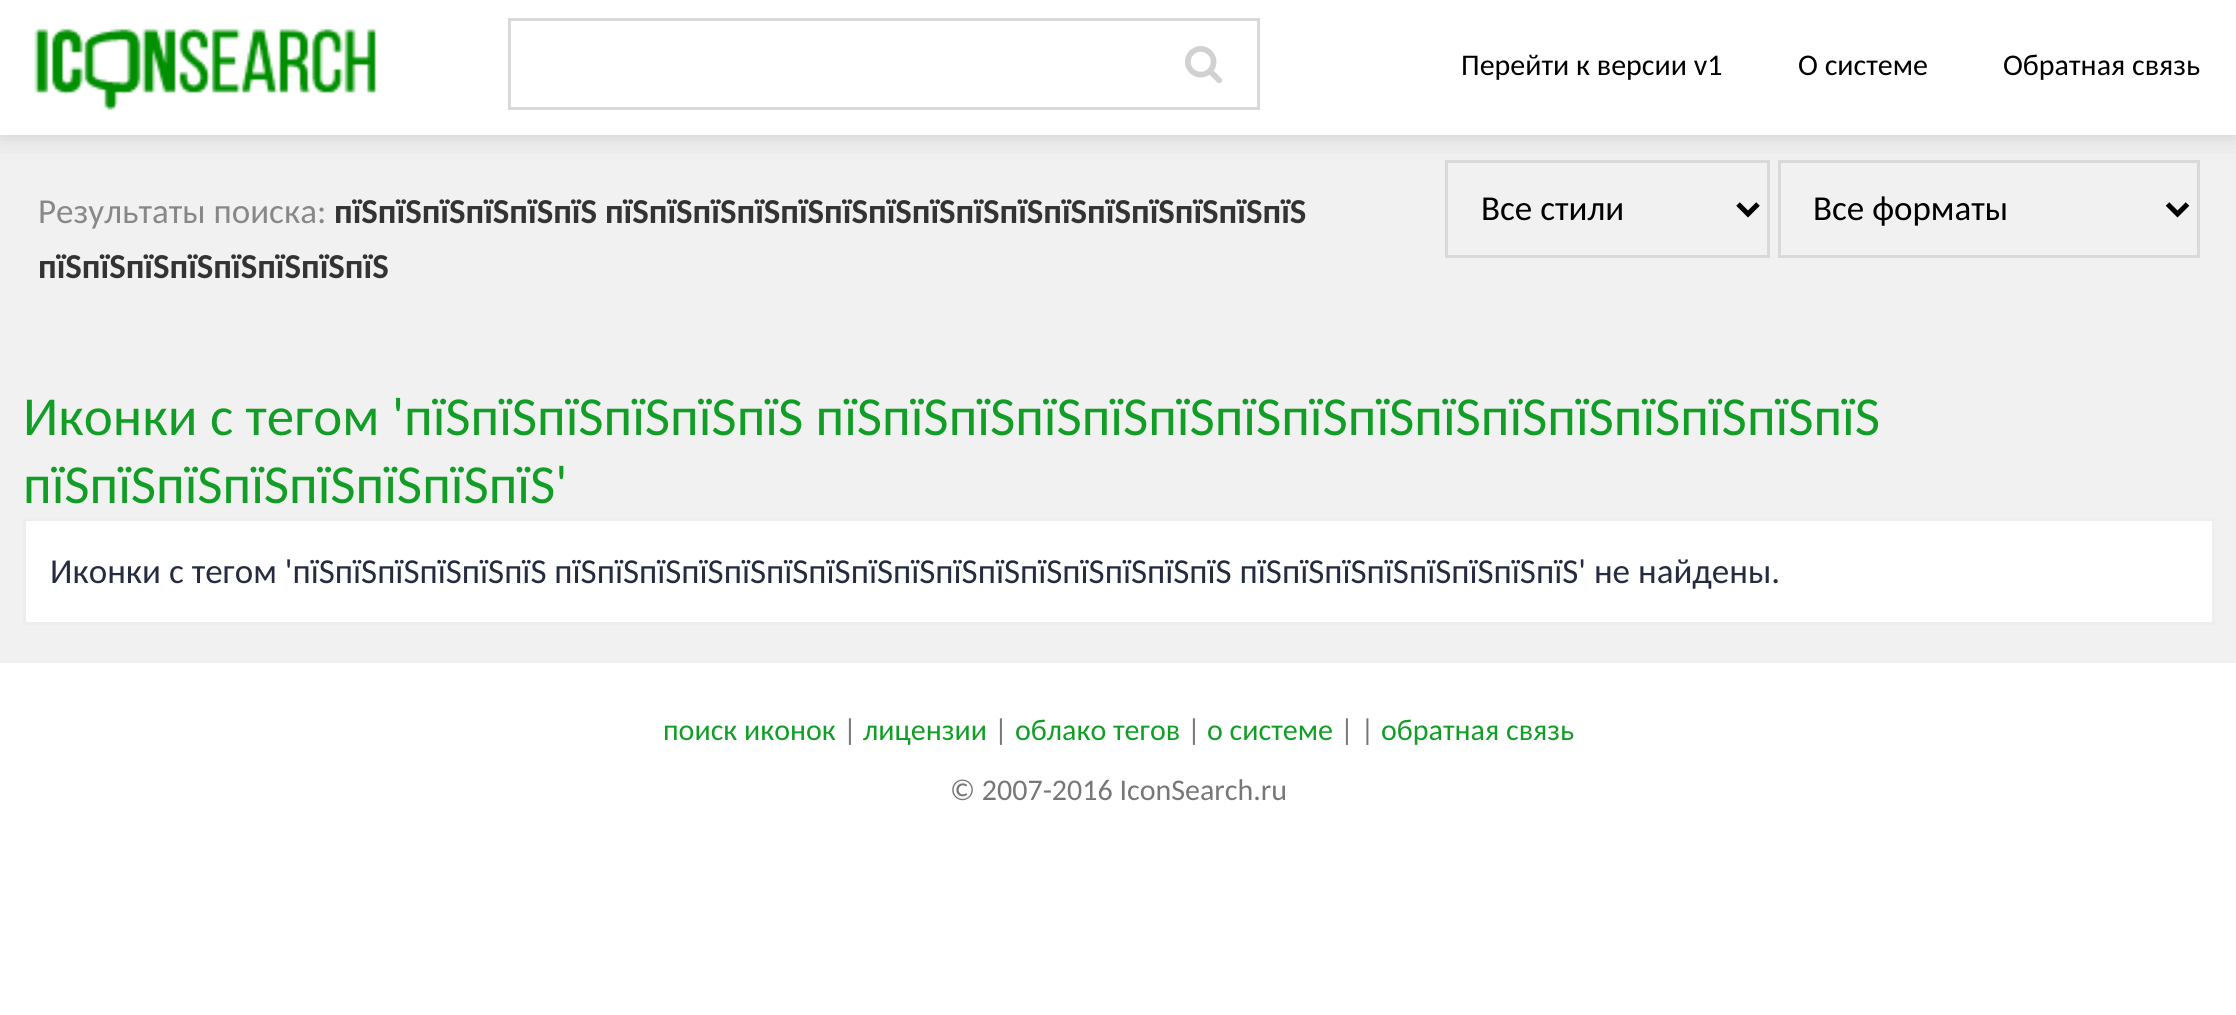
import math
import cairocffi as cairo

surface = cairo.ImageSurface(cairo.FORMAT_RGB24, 2236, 1015)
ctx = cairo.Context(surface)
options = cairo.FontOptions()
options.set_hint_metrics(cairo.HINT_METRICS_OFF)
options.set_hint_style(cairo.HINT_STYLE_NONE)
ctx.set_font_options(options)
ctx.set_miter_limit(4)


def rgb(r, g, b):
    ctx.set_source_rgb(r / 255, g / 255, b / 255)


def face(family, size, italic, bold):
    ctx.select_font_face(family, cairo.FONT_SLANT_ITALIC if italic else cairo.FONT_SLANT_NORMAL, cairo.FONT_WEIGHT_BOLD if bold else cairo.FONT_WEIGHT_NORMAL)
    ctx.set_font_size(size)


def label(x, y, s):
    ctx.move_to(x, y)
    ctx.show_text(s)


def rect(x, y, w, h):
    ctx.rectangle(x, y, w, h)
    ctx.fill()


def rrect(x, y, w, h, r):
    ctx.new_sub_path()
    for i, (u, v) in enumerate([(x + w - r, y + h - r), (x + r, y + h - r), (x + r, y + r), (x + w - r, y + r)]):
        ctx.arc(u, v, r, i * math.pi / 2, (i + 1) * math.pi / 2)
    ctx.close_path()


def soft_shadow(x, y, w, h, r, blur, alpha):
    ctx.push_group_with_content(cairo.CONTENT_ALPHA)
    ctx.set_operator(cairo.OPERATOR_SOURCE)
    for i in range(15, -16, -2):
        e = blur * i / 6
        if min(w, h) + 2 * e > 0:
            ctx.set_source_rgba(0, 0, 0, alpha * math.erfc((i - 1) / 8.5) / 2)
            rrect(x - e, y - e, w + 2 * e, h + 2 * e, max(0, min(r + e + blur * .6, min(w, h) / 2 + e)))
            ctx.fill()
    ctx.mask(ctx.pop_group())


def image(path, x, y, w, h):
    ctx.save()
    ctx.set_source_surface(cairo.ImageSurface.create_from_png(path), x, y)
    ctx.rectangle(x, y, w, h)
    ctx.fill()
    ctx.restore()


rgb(255, 255, 255)
ctx.paint()
rgb(241, 241, 241)
rect(0, 135, 2236, 528)
ctx.rectangle(1446.5, 161.5, 322, 95)
rgb(217, 217, 217)
ctx.set_line_width(3)
ctx.stroke()
ctx.rectangle(1779.5, 161.5, 419, 95)
ctx.stroke()
ctx.save()
ctx.rectangle(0, 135, 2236, 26)
ctx.clip()
rgb(204, 204, 204)
soft_shadow(0, -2, 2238, 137, 0, 12.5, 1)
ctx.restore()
image('image0.png', 34, 28, 342, 83)
ctx.rectangle(509.5, 19.5, 749, 89)
ctx.stroke()
image('image1.png', 1185, 46, 38, 38)
face('Carlito', 30, 0, 0)
rgb(0, 0, 0)
label(1461, 75, 'Перейти к версии v1')
label(1798, 75, 'О системе')
label(2003, 75, 'Обратная связь')
face('Carlito', 35, 0, 0)
rgb(136, 136, 136)
label(38, 223, 'Результаты поиска:')
face('Carlito', 35, 0, 1)
rgb(51, 51, 51)
label(334, 223, 'пїЅпїЅпїЅпїЅпїЅпїЅ пїЅпїЅпїЅпїЅпїЅпїЅпїЅпїЅпїЅпїЅпїЅпїЅпїЅпїЅпїЅпїЅ')
label(38, 278, 'пїЅпїЅпїЅпїЅпїЅпїЅпїЅпїЅ')
ctx.new_path()
ctx.move_to(1738, 204)
ctx.line_to(1748, 214)
ctx.line_to(1758, 204)
rgb(0, 0, 0)
ctx.set_line_width(5)
ctx.stroke()
face('Carlito', 35, 0, 0)
label(1481, 220, 'Все стили')
ctx.new_path()
ctx.move_to(2167.5, 204)
ctx.line_to(2177.5, 214)
ctx.line_to(2187.5, 204)
ctx.stroke()
label(1813, 220, 'Все форматы')
face('Carlito', 55, 0, 0)
rgb(18, 158, 38)
label(23, 435, 'Иконки с тегом \'пїЅпїЅпїЅпїЅпїЅпїЅ пїЅпїЅпїЅпїЅпїЅпїЅпїЅпїЅпїЅпїЅпїЅпїЅпїЅпїЅпїЅпїЅ')
label(23, 503, 'пїЅпїЅпїЅпїЅпїЅпїЅпїЅпїЅ\'')
rgb(255, 255, 255)
ctx.rectangle(24.5, 519.5, 2189, 104)
ctx.fill_preserve()
rgb(238, 238, 238)
ctx.set_line_width(3)
ctx.stroke()
face('Carlito', 35, 0, 0)
rgb(38, 44, 64)
label(50, 583, 'Иконки с тегом \'пїЅпїЅпїЅпїЅпїЅпїЅ пїЅпїЅпїЅпїЅпїЅпїЅпїЅпїЅпїЅпїЅпїЅпїЅпїЅпїЅпїЅпїЅ пїЅпїЅпїЅпїЅпїЅпїЅпїЅпїЅ\' не найдены.')
face('Carlito', 30, 0, 0)
rgb(18, 158, 38)
label(663, 740, 'поиск иконок')
rgb(119, 119, 119)
label(843, 740, '|')
rgb(18, 158, 38)
label(863, 740, 'лицензии')
rgb(119, 119, 119)
label(994, 740, '|')
rgb(18, 158, 38)
label(1015, 740, 'облако тегов')
rgb(119, 119, 119)
label(1187, 740, '|')
rgb(18, 158, 38)
label(1207, 740, 'о системе')
rgb(119, 119, 119)
label(1340, 740, '| |')
rgb(18, 158, 38)
label(1381, 740, 'обратная связь')
rgb(119, 119, 119)
label(950, 800, '© 2007-2016 IconSearch.ru')
surface.write_to_png('render.png')
